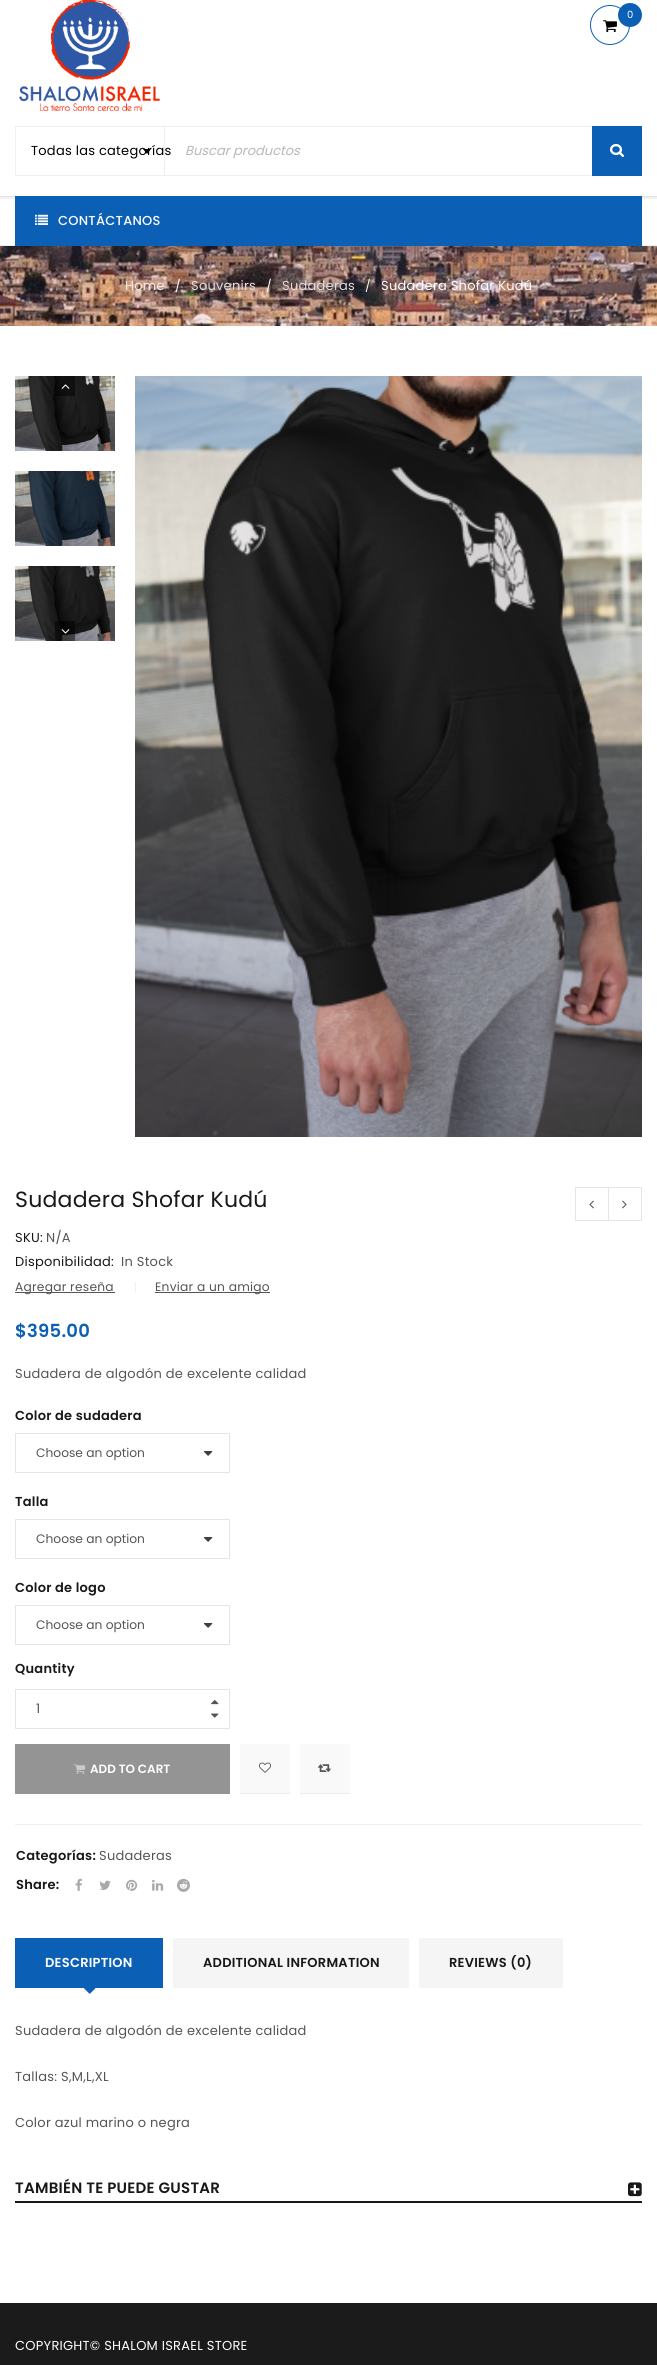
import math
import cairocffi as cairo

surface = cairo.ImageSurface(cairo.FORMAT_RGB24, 657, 2365)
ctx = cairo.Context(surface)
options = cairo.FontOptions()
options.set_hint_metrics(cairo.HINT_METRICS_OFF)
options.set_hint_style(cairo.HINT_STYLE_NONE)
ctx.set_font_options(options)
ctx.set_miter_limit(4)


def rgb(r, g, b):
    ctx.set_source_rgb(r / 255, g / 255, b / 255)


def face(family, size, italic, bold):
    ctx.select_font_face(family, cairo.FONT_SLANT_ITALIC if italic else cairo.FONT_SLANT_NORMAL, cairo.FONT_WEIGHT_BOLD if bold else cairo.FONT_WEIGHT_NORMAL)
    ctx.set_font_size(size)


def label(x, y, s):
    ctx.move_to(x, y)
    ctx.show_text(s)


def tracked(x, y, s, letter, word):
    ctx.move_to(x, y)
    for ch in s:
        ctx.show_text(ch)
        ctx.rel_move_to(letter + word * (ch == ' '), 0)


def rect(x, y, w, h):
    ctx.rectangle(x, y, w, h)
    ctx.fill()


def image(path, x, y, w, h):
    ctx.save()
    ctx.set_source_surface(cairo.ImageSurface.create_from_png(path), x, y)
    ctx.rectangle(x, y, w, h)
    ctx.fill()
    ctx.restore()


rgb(255, 255, 255)
ctx.paint()
rgb(242, 242, 242)
rect(0, 197, 657, 2)
image('image0.png', 19, 0, 141, 112)
ctx.arc(610, 25, 19.5, 0, 2 * math.pi)
rgb(11, 95, 181)
ctx.set_line_width(1)
ctx.stroke()
image('image1.png', 603, 20, 14, 13)
ctx.arc(630, 15, 12, 0, 2 * math.pi)
ctx.fill()
face('Poppins', 10, 0, 0)
rgb(255, 255, 255)
tracked(627, 18, '0', 0.25, 0)
ctx.rectangle(15.5, 126.5, 149, 49)
rgb(239, 239, 239)
ctx.stroke()
face('Poppins', 13, 0, 0)
rgb(0, 0, 0)
tracked(31, 155, 'Todas las categorías', 0.25, 0)
ctx.new_path()
ctx.move_to(143, 149)
ctx.line_to(151, 149)
ctx.line_to(147, 154)
ctx.close_path()
ctx.fill()
ctx.rectangle(164.5, 126.5, 476, 49)
rgb(239, 239, 239)
ctx.stroke()
face('Poppins', 13, 1, 0)
rgb(184, 184, 184)
label(185, 155, 'Buscar productos')
rgb(11, 95, 181)
rect(592, 126, 50, 50)
image('image2.png', 610, 144, 14, 13)
rgb(227, 227, 227)
rect(0, 196, 657, 1)
rgb(239, 239, 239)
rect(0, 245, 657, 1)
rgb(11, 95, 181)
rect(15, 196, 627, 50)
image('image3.png', 35, 214, 13, 11)
face('Poppins Medium', 13, 0, 0)
rgb(255, 255, 255)
tracked(58, 225, 'CONTÁCTANOS', 0.25, 0)
image('image4.png', 0, 246, 657, 80)
face('Poppins', 13, 0, 0)
rgb(241, 233, 230)
tracked(125, 290, 'Home', 0.25, 0)
face('Poppins', 12, 0, 0)
rgb(255, 255, 255)
tracked(175, 290, '/', 0.25, 0)
face('Poppins', 13, 0, 0)
rgb(224, 220, 219)
tracked(191, 290, 'Souvenirs', 0.25, 0)
face('Poppins', 12, 0, 0)
rgb(255, 255, 255)
tracked(266, 290, '/', 0.25, 0)
face('Poppins', 13, 0, 0)
rgb(224, 220, 219)
tracked(282, 290, 'Sudaderas', 0.25, 0)
face('Poppins', 12, 0, 0)
rgb(255, 255, 255)
tracked(365, 290, '/', 0.25, 0)
face('Poppins', 13, 0, 0)
tracked(381, 290, 'Sudadera Shofar Kudú', 0.25, 0)
image('image5.png', 15, 376, 100, 75)
image('image6.png', 15, 471, 100, 75)
image('image7.png', 15, 566, 100, 75)
ctx.set_source_rgba(0, 0, 0, 0.5)
rect(55, 376, 20, 20)
image('image8.png', 61, 384, 9, 5)
rect(55, 621, 20, 20)
image('image9.png', 61, 629, 9, 5)
image('image10.png', 135, 376, 507, 761)
face('Poppins', 22, 0, 0)
rgb(24, 24, 24)
tracked(15, 1207, 'Sudadera Shofar Kudú', 0.25, 0)
ctx.rectangle(575.5, 1187.5, 33, 33)
rgb(229, 229, 229)
ctx.stroke()
image('image11.png', 589, 1200, 5, 9)
ctx.rectangle(608.5, 1187.5, 33, 33)
ctx.stroke()
image('image12.png', 622, 1200, 5, 9)
face('Poppins', 13, 0, 0)
rgb(24, 24, 24)
tracked(15, 1242, 'SKU:', 0.25, 0)
rgb(85, 85, 85)
tracked(46, 1242, 'N/A', 0.25, 0)
rgb(24, 24, 24)
tracked(15, 1266, 'Disponibilidad:', 0.25, 0)
rgb(85, 85, 85)
tracked(121, 1266, 'In Stock', 0.25, 0)
rect(15, 1292, 100, 1)
face('Poppins', 12.25, 0, 0)
tracked(15, 1291, 'Agregar reseña', 0.25, 0)
rgb(239, 239, 239)
rect(135, 1282, 1, 10)
rgb(85, 85, 85)
rect(155, 1292, 115, 1)
tracked(155, 1291, 'Enviar a un amigo', 0.25, 0)
face('Poppins SemiBold', 18, 0, 0)
rgb(11, 95, 181)
tracked(15, 1337, '$395.00', 0.25, 0)
face('Poppins', 13, 0, 0)
rgb(85, 85, 85)
tracked(15, 1378, 'Sudadera de algodón de excelente calidad', 0.25, 0)
face('Poppins SemiBold', 13, 0, 0)
rgb(24, 24, 24)
tracked(15, 1420, 'Color de sudadera', 0.25, 0)
image('image13.png', 204, 1451, 9, 5)
ctx.rectangle(15.5, 1433.5, 214, 39)
rgb(229, 229, 229)
ctx.stroke()
face('Poppins', 12.25, 0, 0)
rgb(85, 85, 85)
label(36, 1457, 'Choose an option')
face('Poppins SemiBold', 13, 0, 0)
rgb(24, 24, 24)
tracked(15, 1506, 'Talla', 0.25, 0)
image('image13.png', 204, 1537, 9, 5)
ctx.rectangle(15.5, 1519.5, 214, 39)
rgb(229, 229, 229)
ctx.stroke()
face('Poppins', 12.25, 0, 0)
rgb(85, 85, 85)
label(36, 1543, 'Choose an option')
face('Poppins SemiBold', 13, 0, 0)
rgb(24, 24, 24)
tracked(15, 1592, 'Color de logo', 0.25, 0)
image('image13.png', 204, 1623, 9, 5)
ctx.rectangle(15.5, 1605.5, 214, 39)
rgb(229, 229, 229)
ctx.stroke()
face('Poppins', 12.25, 0, 0)
rgb(85, 85, 85)
label(36, 1629, 'Choose an option')
face('Poppins SemiBold', 13, 0, 0)
rgb(24, 24, 24)
tracked(15, 1673, 'Quantity', 0.25, 0)
ctx.rectangle(15.5, 1689.5, 214, 39)
rgb(229, 229, 229)
ctx.stroke()
image('image14.png', 211, 1700, 8, 5)
face('Poppins', 13, 0, 0)
rgb(85, 85, 85)
label(36, 1713, '1')
image('image15.png', 211, 1713, 8, 5)
rgb(148, 148, 148)
rect(15, 1744, 215, 50)
image('image16.png', 74, 1764, 12, 10)
face('Poppins SemiBold', 12, 0, 0)
rgb(255, 255, 255)
label(90, 1773, 'ADD TO CART')
rgb(249, 249, 249)
rect(240, 1744, 50, 49)
rgb(236, 236, 236)
rect(240, 1793, 50, 1)
image('image17.png', 259, 1762, 12, 11)
rgb(249, 249, 249)
rect(300, 1744, 50, 49)
rgb(236, 236, 236)
rect(300, 1793, 50, 1)
image('image18.png', 318, 1764, 13, 8)
rgb(239, 239, 239)
rect(15, 1824, 627, 1)
face('Poppins SemiBold', 13, 0, 0)
rgb(24, 24, 24)
tracked(16, 1860, 'Categorías:', 0.25, 0)
face('Poppins', 13, 0, 0)
rgb(85, 85, 85)
tracked(99, 1860, 'Sudaderas', 0.25, 0)
face('Poppins SemiBold', 13, 0, 0)
rgb(24, 24, 24)
tracked(16, 1889, 'Share:', 0.25, 0)
image('image19.png', 75, 1878, 7, 13)
image('image20.png', 99, 1880, 12, 10)
image('image21.png', 126, 1879, 12, 12)
image('image22.png', 152, 1880, 12, 11)
image('image23.png', 177, 1878, 13, 14)
rgb(11, 95, 181)
rect(15, 1938, 148, 50)
rgb(255, 255, 255)
tracked(45, 1967, 'DESCRIPTION', 0.25, 0)
image('image24.png', 84, 1988, 12, 6)
rgb(245, 245, 245)
rect(173, 1938, 236, 50)
rgb(24, 24, 24)
tracked(203, 1967, 'ADDITIONAL INFORMATION', 0.25, 0)
rgb(245, 245, 245)
rect(419, 1938, 144, 50)
rgb(24, 24, 24)
tracked(449, 1967, 'REVIEWS (0)', 0.25, 0)
face('Poppins', 13, 0, 0)
rgb(85, 85, 85)
tracked(15, 2035, 'Sudadera de algodón de excelente calidad', 0.25, 0)
tracked(15, 2081, 'Tallas: S,M,L,XL', 0.25, 0)
tracked(15, 2127, 'Color azul marino o negra', 0.25, 0)
rgb(24, 24, 24)
rect(15, 2201, 627, 2)
face('Poppins SemiBold', 15, 0, 0)
tracked(15, 2193, 'TAMBIÉN TE PUEDE GUSTAR', 0.25, 0)
image('image25.png', 628, 2182, 14, 15)
rgb(27, 27, 27)
rect(0, 2303, 657, 62)
face('Poppins', 13, 0, 0)
rgb(255, 255, 255)
tracked(15, 2350, 'COPYRIGHT© SHALOM ISRAEL STORE', 0.25, 0)
surface.write_to_png('render.png')
